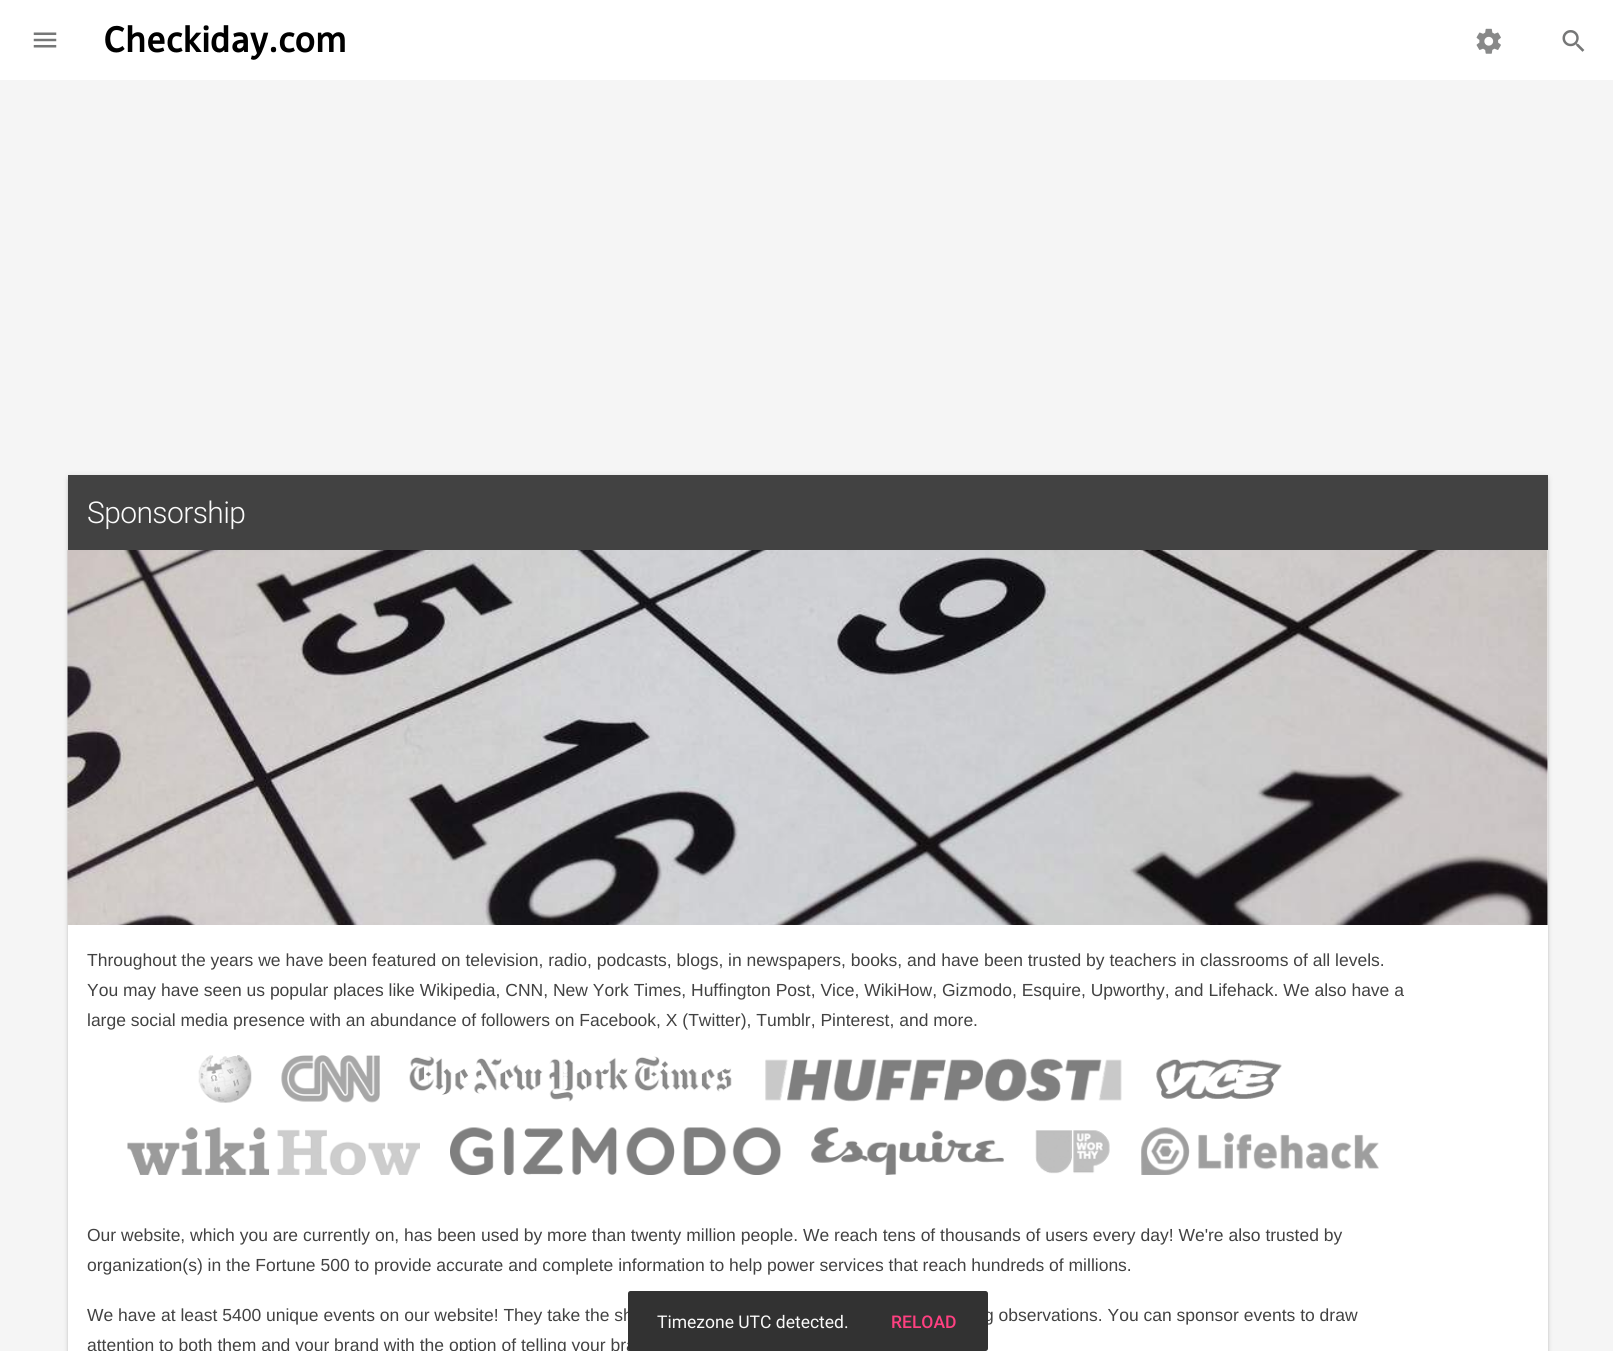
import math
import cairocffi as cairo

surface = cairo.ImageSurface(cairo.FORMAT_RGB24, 1613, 1351)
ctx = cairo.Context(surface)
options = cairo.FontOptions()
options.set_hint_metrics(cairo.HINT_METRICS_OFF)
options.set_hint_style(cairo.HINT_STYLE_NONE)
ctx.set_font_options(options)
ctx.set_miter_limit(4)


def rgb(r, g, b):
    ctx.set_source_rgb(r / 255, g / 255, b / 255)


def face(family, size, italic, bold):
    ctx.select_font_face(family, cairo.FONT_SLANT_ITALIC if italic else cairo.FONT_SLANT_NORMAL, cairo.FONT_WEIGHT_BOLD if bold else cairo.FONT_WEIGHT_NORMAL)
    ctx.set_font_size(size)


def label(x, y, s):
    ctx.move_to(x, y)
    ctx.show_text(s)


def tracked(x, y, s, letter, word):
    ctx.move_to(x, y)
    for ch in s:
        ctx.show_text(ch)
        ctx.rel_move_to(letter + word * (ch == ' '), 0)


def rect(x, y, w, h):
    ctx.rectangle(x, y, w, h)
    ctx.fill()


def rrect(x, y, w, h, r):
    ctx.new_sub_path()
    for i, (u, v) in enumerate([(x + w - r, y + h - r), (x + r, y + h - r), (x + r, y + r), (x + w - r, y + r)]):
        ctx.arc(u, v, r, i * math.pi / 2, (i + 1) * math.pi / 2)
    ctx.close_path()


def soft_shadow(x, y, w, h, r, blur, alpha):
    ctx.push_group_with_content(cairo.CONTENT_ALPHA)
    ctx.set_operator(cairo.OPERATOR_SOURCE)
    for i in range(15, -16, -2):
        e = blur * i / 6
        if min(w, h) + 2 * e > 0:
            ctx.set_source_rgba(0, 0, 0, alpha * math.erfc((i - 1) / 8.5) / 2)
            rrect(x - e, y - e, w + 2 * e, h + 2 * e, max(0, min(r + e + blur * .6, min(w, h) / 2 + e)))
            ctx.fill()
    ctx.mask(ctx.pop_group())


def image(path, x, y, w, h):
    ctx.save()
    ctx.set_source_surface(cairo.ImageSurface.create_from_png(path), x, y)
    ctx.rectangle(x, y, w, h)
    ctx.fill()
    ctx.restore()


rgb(245, 245, 245)
ctx.paint()
rgb(255, 255, 255)
rect(0, 0, 1613, 80)
image('image0.png', 33, 32, 24, 16)
image('image1.png', 105, 25, 240, 35)
image('image2.png', 1476, 28, 25, 26)
image('image3.png', 1562, 30, 23, 22)
rgb(0, 0, 0)
soft_shadow(68, 476, 1480, 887, 2.5, 3, 0.12)
soft_shadow(68, 478, 1480, 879, 2.5, 1, 0.14)
rgb(255, 255, 255)
rect(68, 550, 1480, 801)
rgb(66, 66, 66)
rect(68, 475, 1480, 75)
face('Roboto Light', 30, 0, 0)
rgb(250, 250, 250)
tracked(87, 523, 'Sponsorship', -0.6, 0)
image('image4.png', 67, 550, 1481, 375)
face('Liberation Sans', 17.5, 0, 0)
rgb(66, 66, 66)
label(87, 966, 'Throughout the years we have been featured on television, radio, podcasts, blogs, in newspapers, books, and have been trusted by teachers in classrooms of all levels.')
label(87, 996, 'You may have seen us popular places like Wikipedia, CNN, New York Times, Huffington Post, Vice, WikiHow, Gizmodo, Esquire, Upworthy, and Lifehack. We also have a')
label(87, 1026, 'large social media presence with an abundance of followers on Facebook, X (Twitter), Tumblr, Pinterest, and more.')
image('image5.png', 198, 1055, 54, 48)
image('image6.png', 281, 1055, 99, 48)
image('image7.png', 409, 1056, 323, 46)
image('image8.png', 765, 1058, 357, 44)
image('image9.png', 1156, 1059, 126, 40)
image('image10.png', 127, 1127, 293, 48)
image('image11.png', 450, 1127, 331, 48)
image('image12.png', 811, 1127, 193, 48)
image('image13.png', 1035, 1130, 75, 44)
image('image14.png', 1141, 1127, 238, 48)
label(87, 1241, 'Our website, which you are currently on, has been used by more than twenty million people. We reach tens of thousands of users every day! We\'re also trusted by')
label(87, 1271, 'organization(s) in the Fortune 500 to provide accurate and complete information to help power services that reach hundreds of millions.')
label(87, 1321, 'We have at least 5400 unique events on our website! They take the sh')
label(984, 1321, 'g observations. You can sponsor events to draw')
label(87, 1351, 'attention to both them and your brand with the option of telling your bra')
rgb(50, 50, 50)
rrect(628, 1291, 360, 60, 2.5)
ctx.fill()
face('Roboto', 17.5, 0, 0)
rgb(250, 250, 250)
label(657, 1328, 'Timezone UTC detected.')
face('Roboto Medium', 17.5, 0, 0)
rgb(255, 64, 129)
label(891, 1328, 'RELOAD')
surface.write_to_png('render.png')
